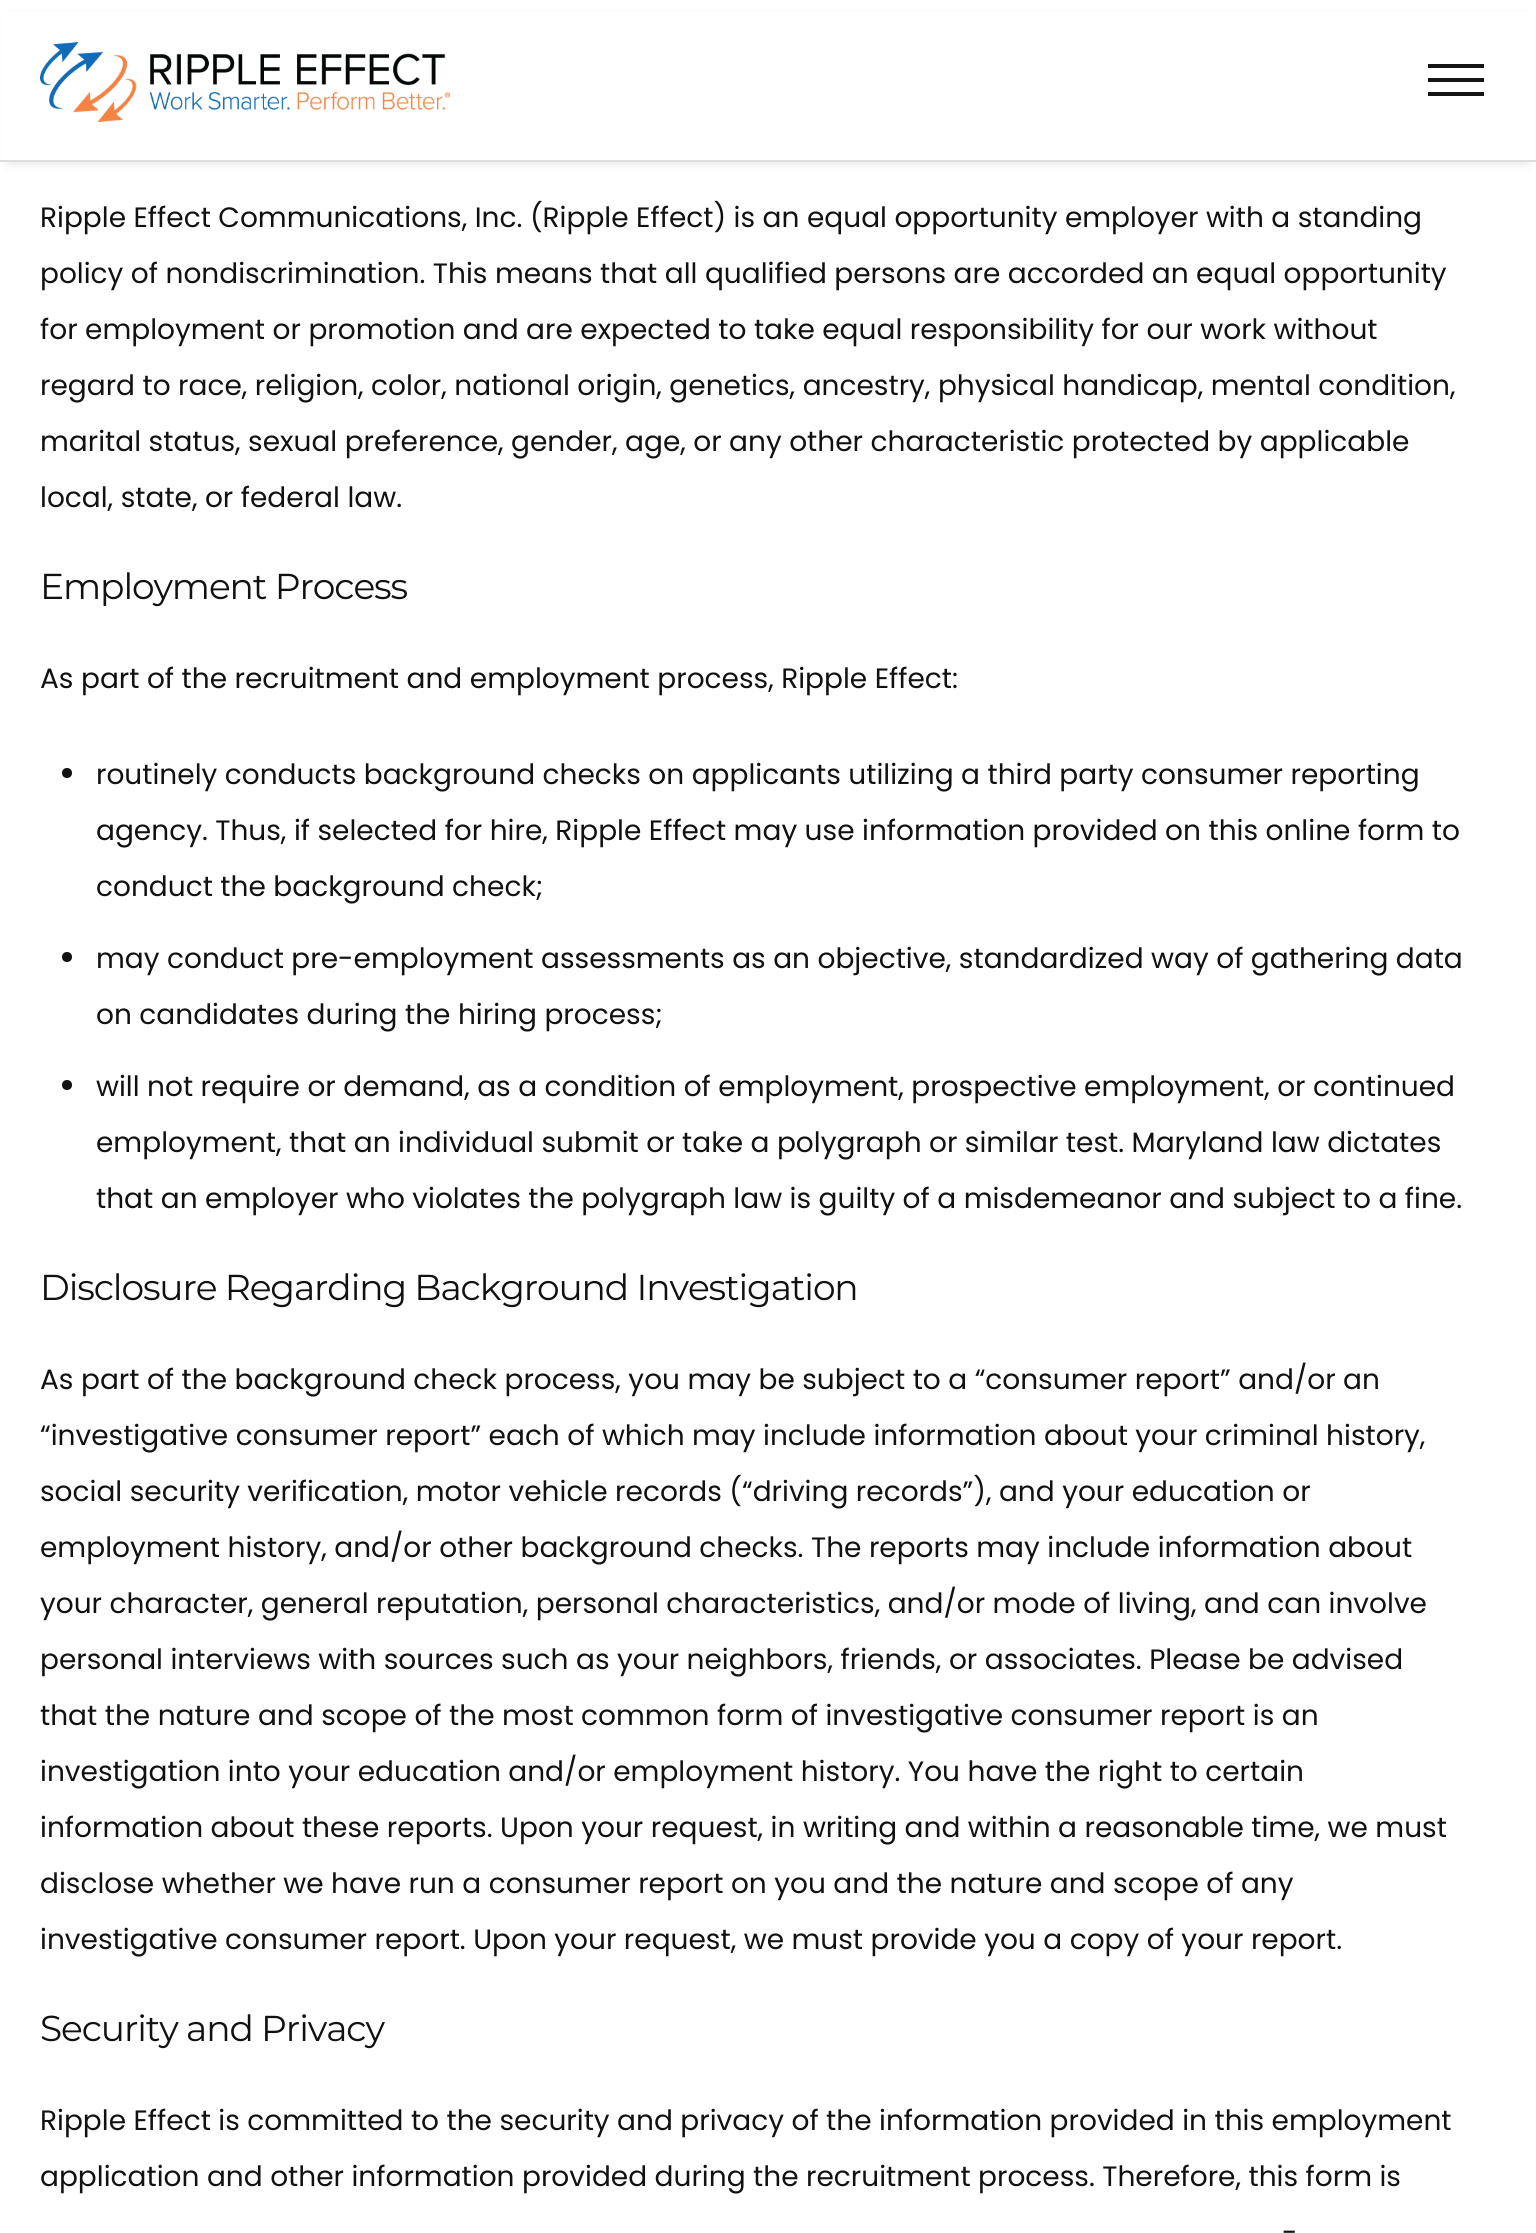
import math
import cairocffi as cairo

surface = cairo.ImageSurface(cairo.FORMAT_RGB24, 1536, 2233)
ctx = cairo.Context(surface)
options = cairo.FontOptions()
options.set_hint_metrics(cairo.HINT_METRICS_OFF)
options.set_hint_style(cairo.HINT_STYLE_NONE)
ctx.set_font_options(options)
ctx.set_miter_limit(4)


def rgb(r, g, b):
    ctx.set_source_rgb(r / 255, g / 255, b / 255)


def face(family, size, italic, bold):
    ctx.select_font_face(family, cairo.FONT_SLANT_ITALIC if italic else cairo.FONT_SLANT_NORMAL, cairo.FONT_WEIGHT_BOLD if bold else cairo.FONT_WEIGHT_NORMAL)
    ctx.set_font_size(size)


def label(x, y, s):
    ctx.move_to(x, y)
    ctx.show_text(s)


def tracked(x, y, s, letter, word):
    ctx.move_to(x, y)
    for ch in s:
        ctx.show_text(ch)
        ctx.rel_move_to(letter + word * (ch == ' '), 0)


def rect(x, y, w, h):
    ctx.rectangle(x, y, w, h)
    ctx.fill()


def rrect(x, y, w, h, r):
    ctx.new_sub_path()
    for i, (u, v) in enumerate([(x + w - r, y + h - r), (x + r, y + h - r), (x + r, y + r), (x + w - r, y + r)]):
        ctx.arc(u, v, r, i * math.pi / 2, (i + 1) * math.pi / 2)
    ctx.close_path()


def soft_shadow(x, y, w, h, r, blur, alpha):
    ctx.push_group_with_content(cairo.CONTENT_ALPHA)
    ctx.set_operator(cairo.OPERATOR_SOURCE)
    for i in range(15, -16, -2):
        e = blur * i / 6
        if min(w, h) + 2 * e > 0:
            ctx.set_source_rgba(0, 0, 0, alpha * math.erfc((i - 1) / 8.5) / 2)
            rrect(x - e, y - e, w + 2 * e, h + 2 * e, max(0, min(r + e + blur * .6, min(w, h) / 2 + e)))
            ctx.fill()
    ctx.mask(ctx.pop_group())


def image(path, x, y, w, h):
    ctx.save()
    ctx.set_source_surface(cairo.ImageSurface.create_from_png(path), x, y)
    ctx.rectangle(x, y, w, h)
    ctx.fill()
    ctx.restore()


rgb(255, 255, 255)
ctx.paint()
rgb(0, 0, 0)
soft_shadow(8, 18, 1520, 146, 0, 5, 0.1)
rgb(255, 255, 255)
rect(2, 12, 1532, 148)
rgb(221, 221, 221)
rect(0, 160, 1536, 2)
image('image0.png', 40, 42, 410, 81)
rgb(21, 21, 21)
rect(1428, 78, 56, 4)
rect(1428, 64, 56, 4)
rect(1428, 92, 56, 4)
face('Poppins', 28, 0, 0)
rgb(17, 17, 17)
label(40, 227, 'Ripple Effect Communications, Inc. (Ripple Effect) is an equal opportunity employer with a standing')
label(40, 283, 'policy of nondiscrimination. This means that all qualified persons are accorded an equal opportunity')
label(40, 339, 'for employment or promotion and are expected to take equal responsibility for our work without')
label(40, 395, 'regard to race, religion, color, national origin, genetics, ancestry, physical handicap, mental condition,')
label(40, 451, 'marital status, sexual preference, gender, age, or any other characteristic protected by applicable')
label(40, 507, 'local, state, or federal law.')
face('Montserrat', 36, 0, 0)
tracked(40, 599, 'Employment Process', -1.1, 0)
face('Poppins', 28, 0, 0)
label(40, 688, 'As part of the recruitment and employment process, Ripple Effect:')
ctx.new_path()
ctx.arc(67, 773, 5, 0, 2 * math.pi)
ctx.fill()
label(96, 784, 'routinely conducts background checks on applicants utilizing a third party consumer reporting')
label(96, 840, 'agency. Thus, if selected for hire, Ripple Effect may use information provided on this online form to')
label(96, 896, 'conduct the background check;')
ctx.new_path()
ctx.arc(67, 957, 5, 0, 2 * math.pi)
ctx.fill()
label(96, 968, 'may conduct pre-employment assessments as an objective, standardized way of gathering data')
label(96, 1024, 'on candidates during the hiring process;')
ctx.new_path()
ctx.arc(67, 1085, 5, 0, 2 * math.pi)
ctx.fill()
label(96, 1096, 'will not require or demand, as a condition of employment, prospective employment, or continued')
label(96, 1152, 'employment, that an individual submit or take a polygraph or similar test. Maryland law dictates')
label(96, 1208, 'that an employer who violates the polygraph law is guilty of a misdemeanor and subject to a fine.')
face('Montserrat', 36, 0, 0)
tracked(40, 1300, 'Disclosure Regarding Background Investigation', -1.1, 0)
face('Poppins', 28, 0, 0)
label(40, 1389, 'As part of the background check process, you may be subject to a “consumer report” and/or an')
label(40, 1445, '“investigative consumer report” each of which may include information about your criminal history,')
label(40, 1501, 'social security verification, motor vehicle records (“driving records”), and your education or')
label(40, 1557, 'employment history, and/or other background checks. The reports may include information about')
label(40, 1613, 'your character, general reputation, personal characteristics, and/or mode of living, and can involve')
label(40, 1669, 'personal interviews with sources such as your neighbors, friends, or associates. Please be advised')
label(40, 1725, 'that the nature and scope of the most common form of investigative consumer report is an')
label(40, 1781, 'investigation into your education and/or employment history. You have the right to certain')
label(40, 1837, 'information about these reports. Upon your request, in writing and within a reasonable time, we must')
label(40, 1893, 'disclose whether we have run a consumer report on you and the nature and scope of any')
label(40, 1949, 'investigative consumer report. Upon your request, we must provide you a copy of your report.')
face('Montserrat', 36, 0, 0)
tracked(40, 2041, 'Security and Privacy', -1.1, 0)
face('Poppins', 28, 0, 0)
label(40, 2130, 'Ripple Effect is committed to the security and privacy of the information provided in this employment')
label(40, 2186, 'application and other information provided during the recruitment process. Therefore, this form is')
label(1282, 2242, '-')
surface.write_to_png('render.png')
